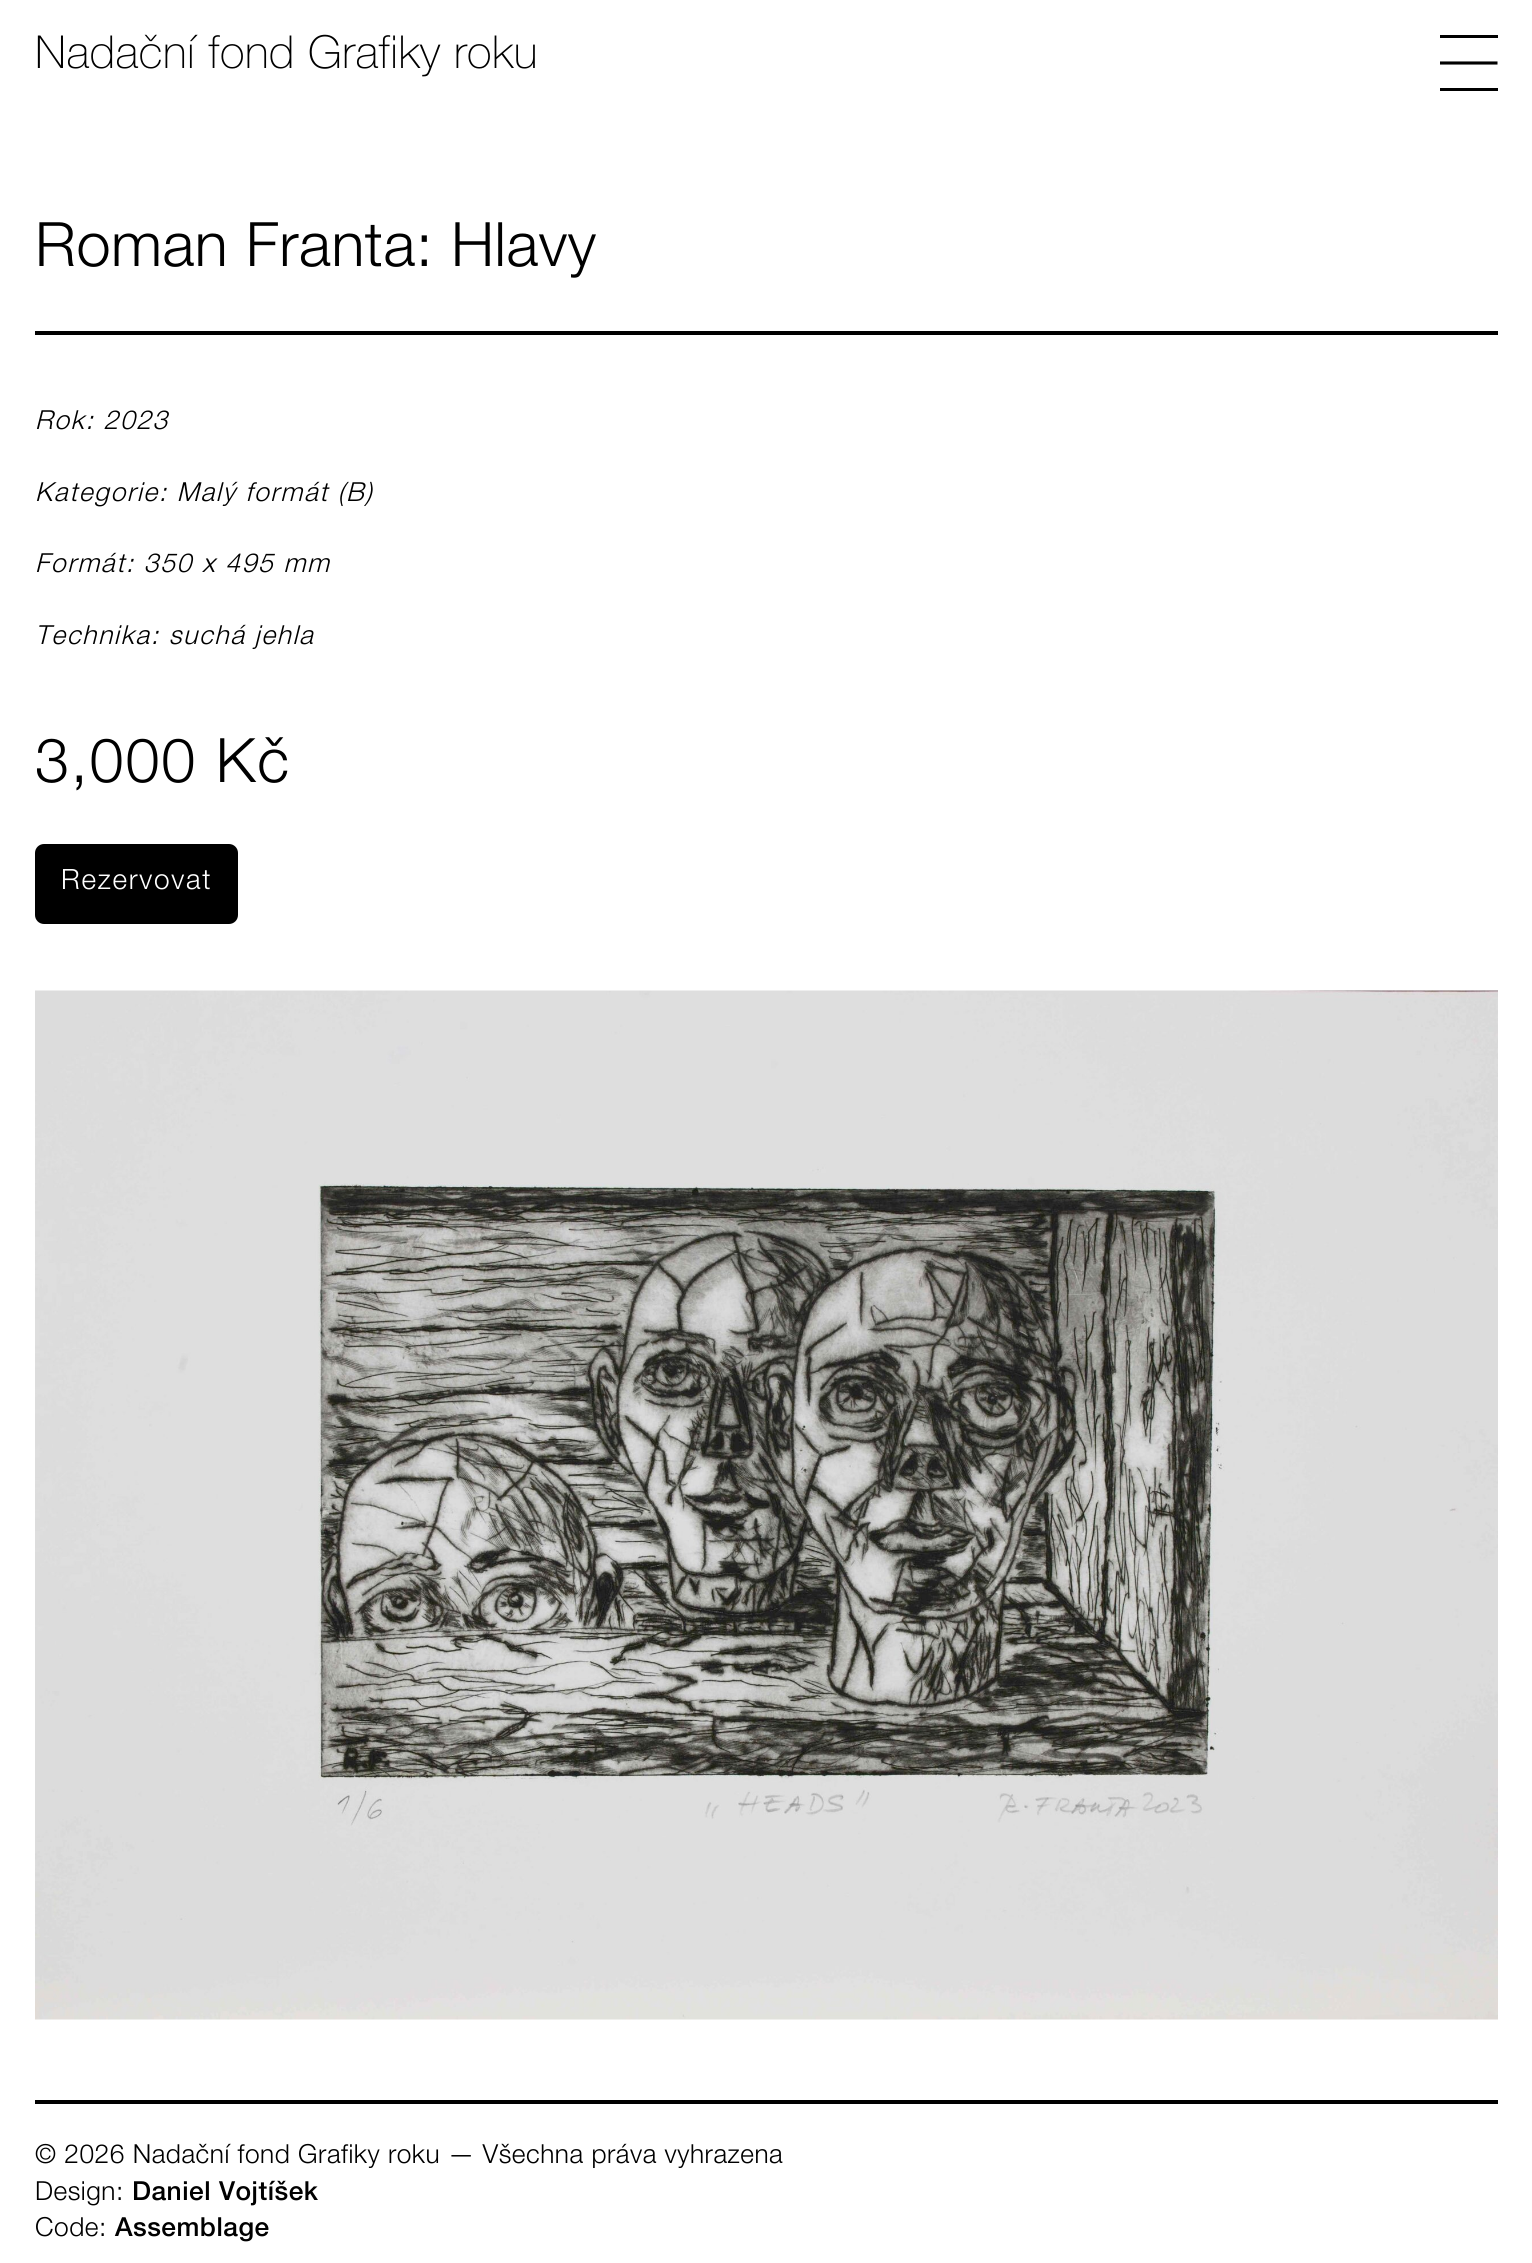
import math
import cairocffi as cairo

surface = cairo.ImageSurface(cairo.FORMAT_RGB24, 1532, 2263)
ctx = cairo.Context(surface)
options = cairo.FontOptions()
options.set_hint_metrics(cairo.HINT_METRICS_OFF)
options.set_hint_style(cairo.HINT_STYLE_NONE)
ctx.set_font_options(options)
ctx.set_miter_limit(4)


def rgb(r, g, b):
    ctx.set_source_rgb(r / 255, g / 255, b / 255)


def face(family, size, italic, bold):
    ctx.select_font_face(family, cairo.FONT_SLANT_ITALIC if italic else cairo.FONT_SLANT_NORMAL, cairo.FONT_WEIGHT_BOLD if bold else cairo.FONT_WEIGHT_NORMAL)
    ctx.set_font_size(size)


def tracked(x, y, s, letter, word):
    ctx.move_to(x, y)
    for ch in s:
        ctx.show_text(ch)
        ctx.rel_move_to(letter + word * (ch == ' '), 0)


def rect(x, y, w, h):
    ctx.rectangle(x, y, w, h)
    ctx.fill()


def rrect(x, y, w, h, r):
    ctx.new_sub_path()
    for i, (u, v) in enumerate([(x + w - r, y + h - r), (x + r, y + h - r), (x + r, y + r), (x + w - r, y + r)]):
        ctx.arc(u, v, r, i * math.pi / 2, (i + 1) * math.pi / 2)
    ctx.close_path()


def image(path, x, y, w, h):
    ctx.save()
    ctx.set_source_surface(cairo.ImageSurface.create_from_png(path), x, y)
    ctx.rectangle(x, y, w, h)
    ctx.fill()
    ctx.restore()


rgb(255, 255, 255)
ctx.paint()
face('Helvetica Neue ExtraLight', 45.5, 0, 0)
rgb(0, 0, 0)
tracked(35, 68, 'Nadační fond Grafiky roku', 0.53, 0)
rect(1440, 35, 58, 3)
ctx.new_path()
ctx.move_to(1440, 63)
ctx.line_to(1497.5, 63)
ctx.set_line_width(3.1)
ctx.stroke()
rect(1440, 88, 58, 3)
rect(35, 331, 1463, 4)
face('Helvetica Neue Light', 61.25, 0, 0)
tracked(35, 266, 'Roman Franta: Hlavy', 0.53, 0)
face('Helvetica Neue Light', 26.25, 1, 0)
tracked(35, 429, 'Rok: 2023', 1.75, 0)
tracked(35, 501, 'Kategorie: Malý formát (B)', 1.75, 0)
tracked(35, 572, 'Formát: 350 x 495 mm', 1.75, 0)
tracked(35, 644, 'Technika: suchá jehla', 1.75, 0)
face('Helvetica Neue Light', 61.25, 0, 0)
tracked(35, 782, '3,000 Kč', 1.75, 0)
rrect(35, 844, 203, 80, 9)
ctx.fill()
face('Helvetica Neue Light', 28, 0, 0)
rgb(255, 255, 255)
tracked(61, 889, 'Rezervovat', 1.75, 0)
image('image0.png', 35, 990, 1463, 1030)
rgb(0, 0, 0)
rect(35, 2100, 1463, 4)
face('Helvetica Neue Light', 26.25, 0, 0)
tracked(35, 2163, '© 2026 Nadační fond Grafiky roku — Všechna práva vyhrazena', 0.53, 0)
tracked(35, 2200, 'Design:', 0.53, 0)
face('Helvetica Neue Medium', 26.25, 0, 0)
tracked(132, 2200, 'Daniel Vojtíšek', 0.53, 0)
face('Helvetica Neue Light', 26.25, 0, 0)
tracked(35, 2236, 'Code:', 0.53, 0)
face('Helvetica Neue Medium', 26.25, 0, 0)
tracked(115, 2236, 'Assemblage', 0.53, 0)
surface.write_to_png('render.png')
